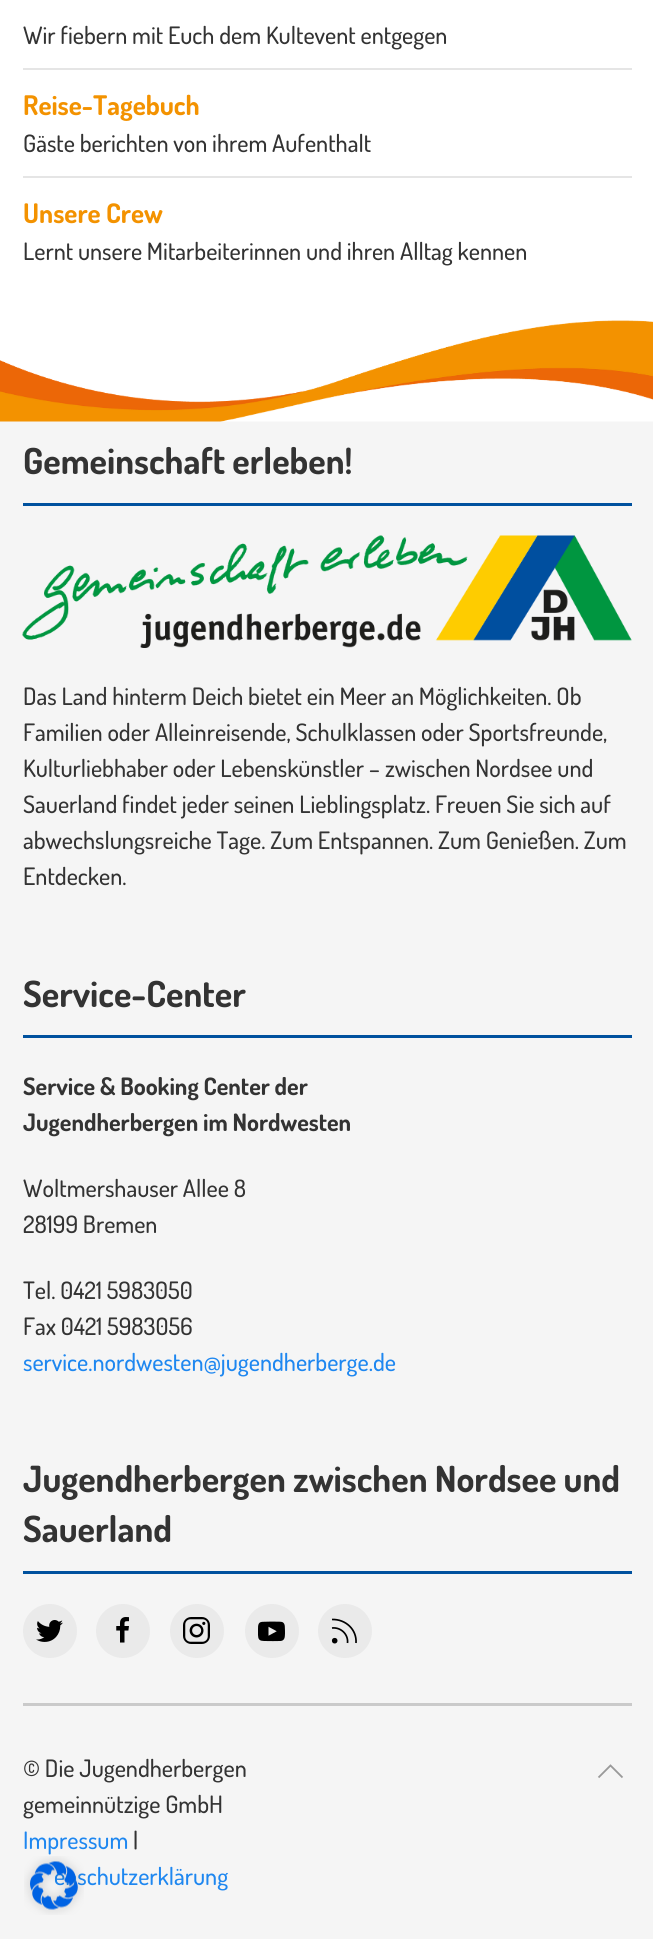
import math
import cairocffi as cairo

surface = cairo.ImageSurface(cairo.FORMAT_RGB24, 653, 1939)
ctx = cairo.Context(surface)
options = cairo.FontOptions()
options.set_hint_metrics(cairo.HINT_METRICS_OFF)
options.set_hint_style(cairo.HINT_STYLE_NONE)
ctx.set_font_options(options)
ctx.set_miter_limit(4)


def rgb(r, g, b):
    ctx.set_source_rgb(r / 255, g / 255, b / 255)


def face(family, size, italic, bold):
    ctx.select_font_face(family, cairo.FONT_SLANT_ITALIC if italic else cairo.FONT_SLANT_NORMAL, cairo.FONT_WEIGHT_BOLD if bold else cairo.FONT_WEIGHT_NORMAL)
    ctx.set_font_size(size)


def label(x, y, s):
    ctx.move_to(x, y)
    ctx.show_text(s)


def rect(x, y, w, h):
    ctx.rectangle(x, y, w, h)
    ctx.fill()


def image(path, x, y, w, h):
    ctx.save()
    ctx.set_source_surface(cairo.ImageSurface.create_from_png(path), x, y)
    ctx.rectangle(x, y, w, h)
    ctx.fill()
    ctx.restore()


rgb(255, 255, 255)
ctx.paint()
face('Dosis Medium', 24, 0, 0)
rgb(51, 51, 51)
label(23, 44, 'Wir fiebern mit Euch dem Kultevent entgegen')
rgb(229, 229, 229)
rect(23, 68, 609, 2)
face('Dosis', 27, 0, 1)
rgb(243, 146, 0)
label(23, 115, 'Reise-Tagebuch')
face('Dosis Medium', 24, 0, 0)
rgb(51, 51, 51)
label(23, 152, 'Gäste berichten von ihrem Aufenthalt')
rgb(229, 229, 229)
rect(23, 176, 609, 2)
face('Dosis', 27, 0, 1)
rgb(243, 146, 0)
label(23, 223, 'Unsere Crew')
face('Dosis Medium', 24, 0, 0)
rgb(51, 51, 51)
label(23, 260, 'Lernt unsere Mitarbeiterinnen und ihren Alltag kennen')
rgb(245, 245, 245)
rect(0, 421, 653, 1518)
image('image0.png', 0, 300, 653, 122)
rgb(0, 81, 158)
rect(23, 503, 609, 3)
face('Dosis', 36, 0, 1)
rgb(51, 51, 51)
label(23, 474, 'Gemeinschaft erleben!')
image('image1.png', 22, 535, 610, 113)
face('Dosis Medium', 24, 0, 0)
label(23, 705, 'Das Land hinterm Deich bietet ein Meer an Möglichkeiten. Ob')
label(23, 741, 'Familien oder Alleinreisende, Schulklassen oder Sportsfreunde,')
label(23, 777, 'Kulturliebhaber oder Lebenskünstler – zwischen Nordsee und')
label(23, 813, 'Sauerland findet jeder seinen Lieblingsplatz. Freuen Sie sich auf')
label(23, 849, 'abwechslungsreiche Tage. Zum Entspannen. Zum Genießen. Zum')
label(23, 885, 'Entdecken.')
rgb(0, 81, 158)
rect(23, 1035, 609, 3)
face('Dosis', 36, 0, 1)
rgb(51, 51, 51)
label(23, 1007, 'Service-Center')
face('Dosis', 24, 0, 1)
label(23, 1095, 'Service & Booking Center der')
label(23, 1131, 'Jugendherbergen im Nordwesten')
face('Dosis Medium', 24, 0, 0)
label(23, 1197, 'Woltmershauser Allee 8')
label(23, 1233, '28199 Bremen')
label(23, 1299, 'Tel. 0421 5983050')
label(23, 1335, 'Fax 0421 5983056')
rgb(30, 135, 240)
label(23, 1371, 'service.nordwesten@jugendherberge.de')
rgb(0, 81, 158)
rect(23, 1571, 609, 3)
face('Dosis', 36, 0, 1)
rgb(51, 51, 51)
label(23, 1492, 'Jugendherbergen zwischen Nordsee und')
label(23, 1542, 'Sauerland')
rgb(234, 234, 234)
ctx.new_path()
ctx.arc(50, 1631, 27, 0, 2 * math.pi)
ctx.fill()
image('image2.png', 36, 1620, 27, 22)
ctx.arc(123, 1631, 27, 0, 2 * math.pi)
ctx.fill()
image('image3.png', 116, 1617, 13, 26)
ctx.arc(197, 1631, 27, 0, 2 * math.pi)
ctx.fill()
image('image4.png', 183, 1617, 27, 27)
ctx.arc(272, 1631, 27, 0, 2 * math.pi)
ctx.fill()
image('image5.png', 258, 1621, 27, 21)
ctx.arc(345, 1631, 27, 0, 2 * math.pi)
ctx.fill()
rgb(0, 0, 0)
ctx.arc(334.7, 1640.7, 2.8, 0, 2 * math.pi)
ctx.fill()
ctx.new_path()
ctx.move_to(332, 1628)
ctx.curve_to(341, 1627, 348.5, 1634.5, 347.5, 1643)
ctx.move_to(332, 1619.5)
ctx.curve_to(345.5, 1619, 357, 1629.5, 356, 1643)
ctx.set_line_width(1.7)
ctx.stroke()
rgb(202, 202, 202)
rect(23, 1703, 609, 3)
face('Dosis Medium', 24, 0, 0)
rgb(51, 51, 51)
label(23, 1777, '© Die Jugendherbergen')
label(23, 1813, 'gemeinnützige GmbH')
rgb(30, 135, 240)
label(23, 1849, 'Impressum')
rgb(51, 51, 51)
label(133, 1849, '|')
rgb(30, 135, 240)
label(54, 1885, 'enschutzerklärung')
ctx.new_path()
ctx.move_to(598.5, 1777.5)
ctx.line_to(610.5, 1765.5)
ctx.line_to(622.5, 1777.5)
rgb(153, 153, 153)
ctx.set_line_width(1.8)
ctx.stroke()
image('image6.png', 24, 1856, 60, 59)
surface.write_to_png('render.png')
